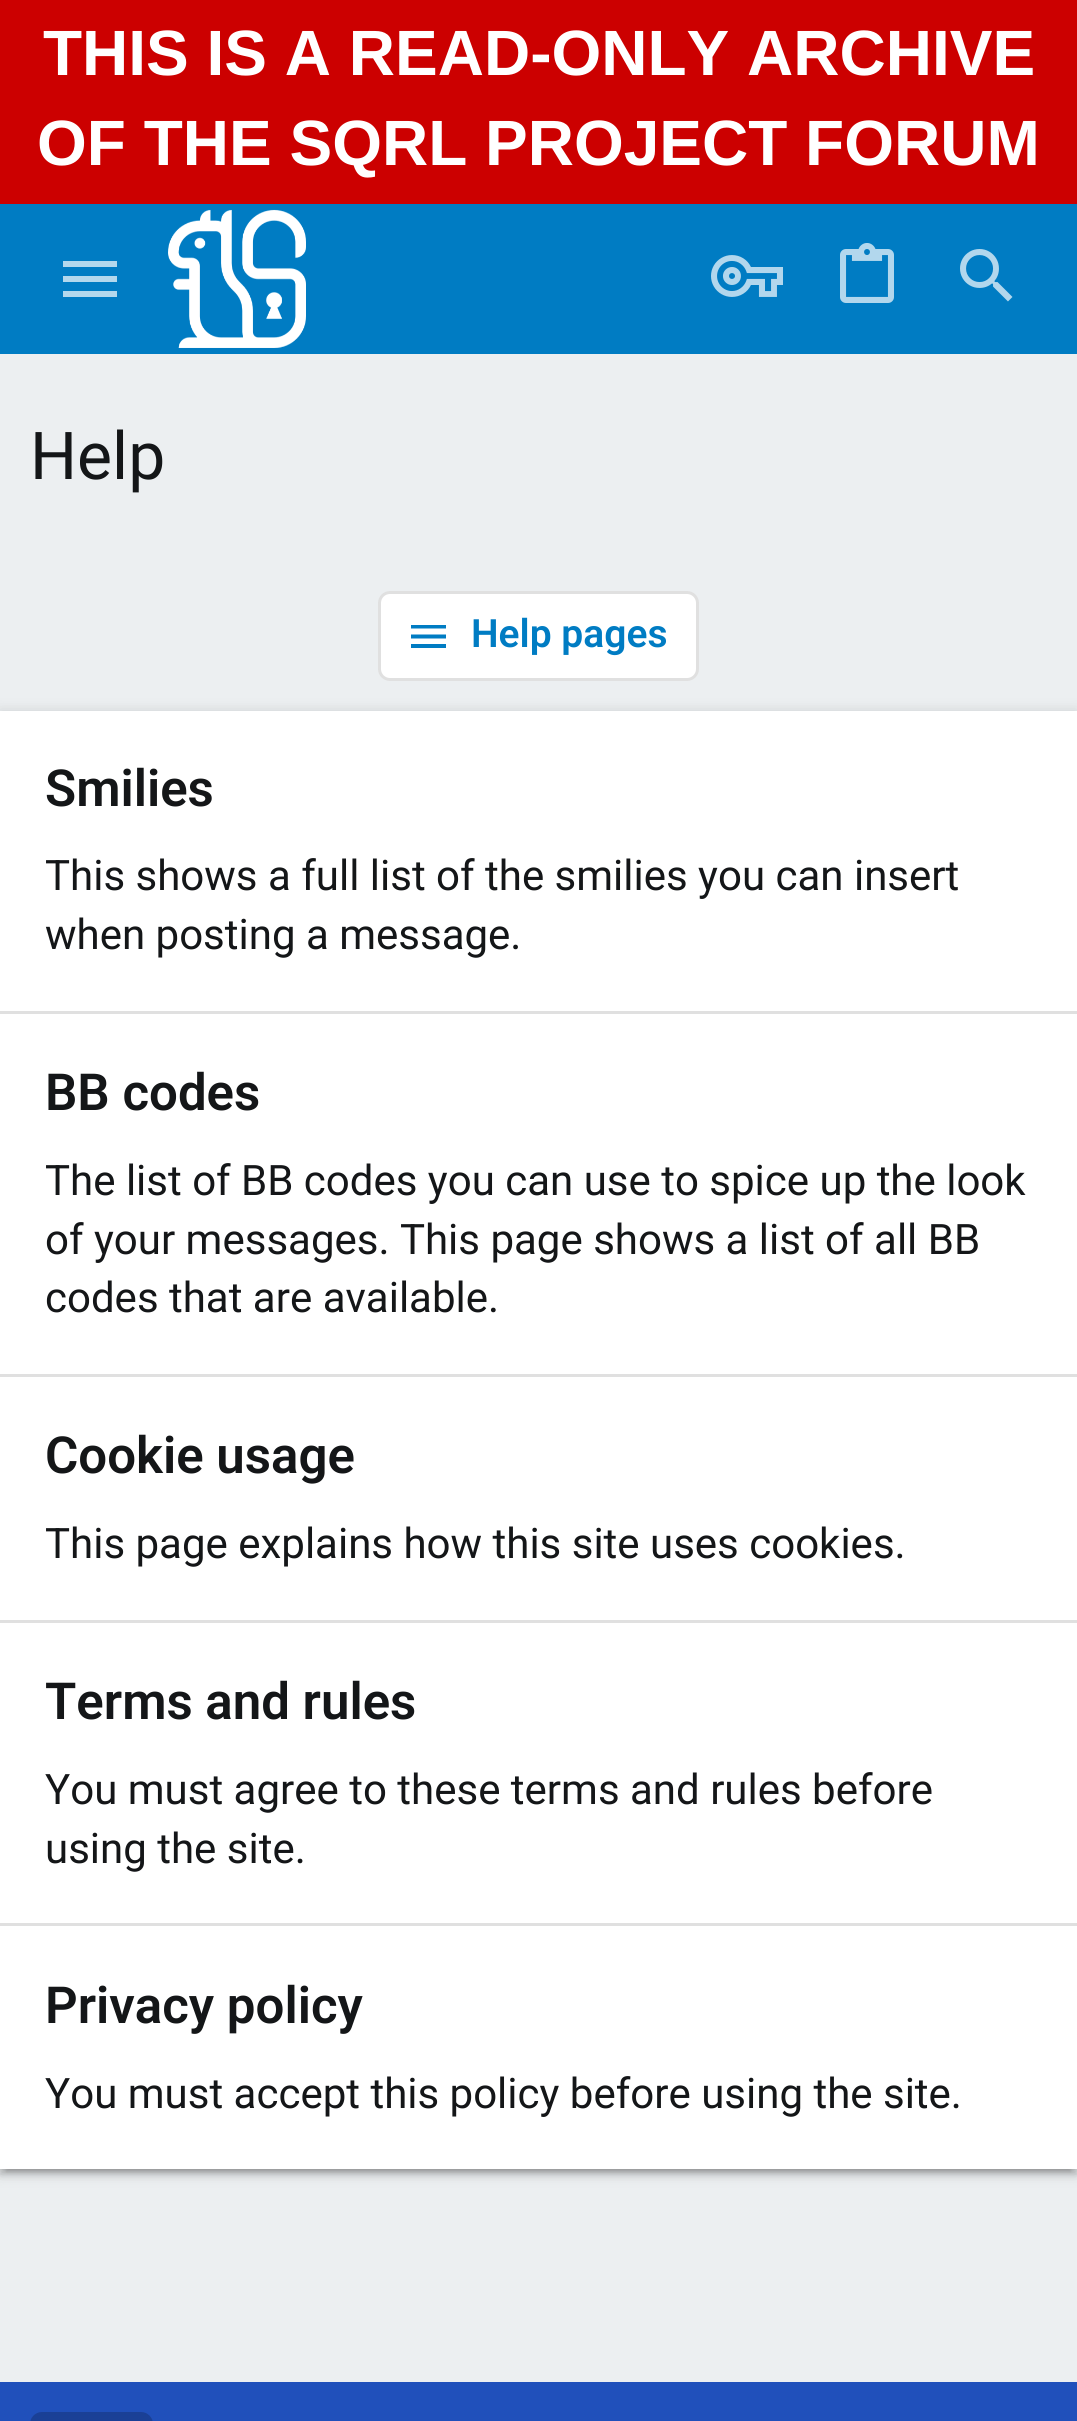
import math
import cairocffi as cairo

surface = cairo.ImageSurface(cairo.FORMAT_RGB24, 1077, 2421)
ctx = cairo.Context(surface)
options = cairo.FontOptions()
options.set_hint_metrics(cairo.HINT_METRICS_OFF)
options.set_hint_style(cairo.HINT_STYLE_NONE)
ctx.set_font_options(options)
ctx.set_miter_limit(4)


def rgb(r, g, b):
    ctx.set_source_rgb(r / 255, g / 255, b / 255)


def face(family, size, italic, bold):
    ctx.select_font_face(family, cairo.FONT_SLANT_ITALIC if italic else cairo.FONT_SLANT_NORMAL, cairo.FONT_WEIGHT_BOLD if bold else cairo.FONT_WEIGHT_NORMAL)
    ctx.set_font_size(size)


def label(x, y, s):
    ctx.move_to(x, y)
    ctx.show_text(s)


def rect(x, y, w, h):
    ctx.rectangle(x, y, w, h)
    ctx.fill()


def rrect(x, y, w, h, r):
    ctx.new_sub_path()
    for i, (u, v) in enumerate([(x + w - r, y + h - r), (x + r, y + h - r), (x + r, y + r), (x + w - r, y + r)]):
        ctx.arc(u, v, r, i * math.pi / 2, (i + 1) * math.pi / 2)
    ctx.close_path()


def soft_shadow(x, y, w, h, r, blur, alpha):
    ctx.push_group_with_content(cairo.CONTENT_ALPHA)
    ctx.set_operator(cairo.OPERATOR_SOURCE)
    for i in range(15, -16, -2):
        e = blur * i / 6
        if min(w, h) + 2 * e > 0:
            ctx.set_source_rgba(0, 0, 0, alpha * math.erfc((i - 1) / 8.5) / 2)
            rrect(x - e, y - e, w + 2 * e, h + 2 * e, max(0, min(r + e + blur * .6, min(w, h) / 2 + e)))
            ctx.fill()
    ctx.mask(ctx.pop_group())


def image(path, x, y, w, h):
    ctx.save()
    ctx.set_source_surface(cairo.ImageSurface.create_from_png(path), x, y)
    ctx.rectangle(x, y, w, h)
    ctx.fill()
    ctx.restore()


rgb(236, 239, 241)
ctx.paint()
rgb(204, 0, 0)
rect(0, 0, 1077, 204)
face('Liberation Sans', 64, 0, 1)
rgb(255, 255, 255)
label(43, 75, 'THIS IS A READ-ONLY ARCHIVE')
label(37, 165, 'OF THE SQRL PROJECT FORUM')
rgb(0, 124, 195)
rect(0, 204, 1077, 150)
rgb(179, 216, 237)
ctx.new_path()
ctx.move_to(63, 261)
ctx.line_to(117, 261)
ctx.line_to(117, 267)
ctx.line_to(63, 267)
ctx.close_path()
ctx.move_to(63, 276)
ctx.line_to(117, 276)
ctx.line_to(117, 282)
ctx.line_to(63, 282)
ctx.close_path()
ctx.move_to(63, 291)
ctx.line_to(117, 291)
ctx.line_to(117, 297)
ctx.line_to(63, 297)
ctx.close_path()
ctx.fill()
image('image0.png', 168, 209, 138, 139)
image('image1.png', 711, 255, 72, 42)
image('image2.png', 840, 243, 54, 60)
image('image3.png', 960, 249, 53, 53)
face('Roboto', 66, 0, 0)
rgb(20, 22, 24)
label(30, 479, 'Help')
rgb(255, 255, 255)
rrect(379.5, 592.5, 318, 87, 10.5)
ctx.fill_preserve()
rgb(224, 224, 224)
ctx.set_line_width(3)
ctx.stroke()
rgb(0, 124, 195)
ctx.new_path()
ctx.move_to(411, 625)
ctx.line_to(446, 625)
ctx.line_to(446, 628.5)
ctx.line_to(411, 628.5)
ctx.close_path()
ctx.move_to(411, 634.5)
ctx.line_to(446, 634.5)
ctx.line_to(446, 638.5)
ctx.line_to(411, 638.5)
ctx.close_path()
ctx.move_to(411, 644)
ctx.line_to(446, 644)
ctx.line_to(446, 648)
ctx.line_to(411, 648)
ctx.close_path()
ctx.fill()
face('Roboto SemiBold', 39, 0, 0)
label(471, 647, 'Help pages')
rgb(0, 0, 0)
soft_shadow(0, 714, 1077, 1458, 0, 7.5, 0.2)
soft_shadow(6, 726, 1065, 1446, 0, 1.5, 0.12)
soft_shadow(0, 717, 1077, 1458, 0, 3, 0.14)
rgb(255, 255, 255)
rect(0, 711, 1077, 1458)
face('Roboto SemiBold', 51, 0, 0)
rgb(20, 22, 24)
label(45, 806, 'Smilies')
face('Roboto', 42, 0, 0)
label(45, 890, 'This shows a full list of the smilies you can insert')
label(45, 949, 'when posting a message.')
rgb(224, 224, 224)
rect(0, 1011, 1077, 3)
face('Roboto SemiBold', 51, 0, 0)
rgb(20, 22, 24)
label(45, 1110, 'BB codes')
face('Roboto', 42, 0, 0)
label(45, 1195, 'The list of BB codes you can use to spice up the look')
label(45, 1254, 'of your messages. This page shows a list of all BB')
label(45, 1312, 'codes that are available.')
rgb(224, 224, 224)
rect(0, 1374, 1077, 3)
face('Roboto SemiBold', 51, 0, 0)
rgb(20, 22, 24)
label(45, 1473, 'Cookie usage')
face('Roboto', 42, 0, 0)
label(45, 1558, 'This page explains how this site uses cookies.')
rgb(224, 224, 224)
rect(0, 1620, 1077, 3)
face('Roboto SemiBold', 51, 0, 0)
rgb(20, 22, 24)
label(45, 1719, 'Terms and rules')
face('Roboto', 42, 0, 0)
label(45, 1804, 'You must agree to these terms and rules before')
label(45, 1863, 'using the site.')
rgb(224, 224, 224)
rect(0, 1923, 1077, 3)
face('Roboto SemiBold', 51, 0, 0)
rgb(20, 22, 24)
label(45, 2023, 'Privacy policy')
face('Roboto', 42, 0, 0)
label(45, 2108, 'You must accept this policy before using the site.')
rgb(32, 80, 187)
rect(0, 2382, 1077, 39)
rgb(26, 64, 150)
rrect(30, 2412, 123, 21, 12)
ctx.fill()
surface.write_to_png('render.png')
